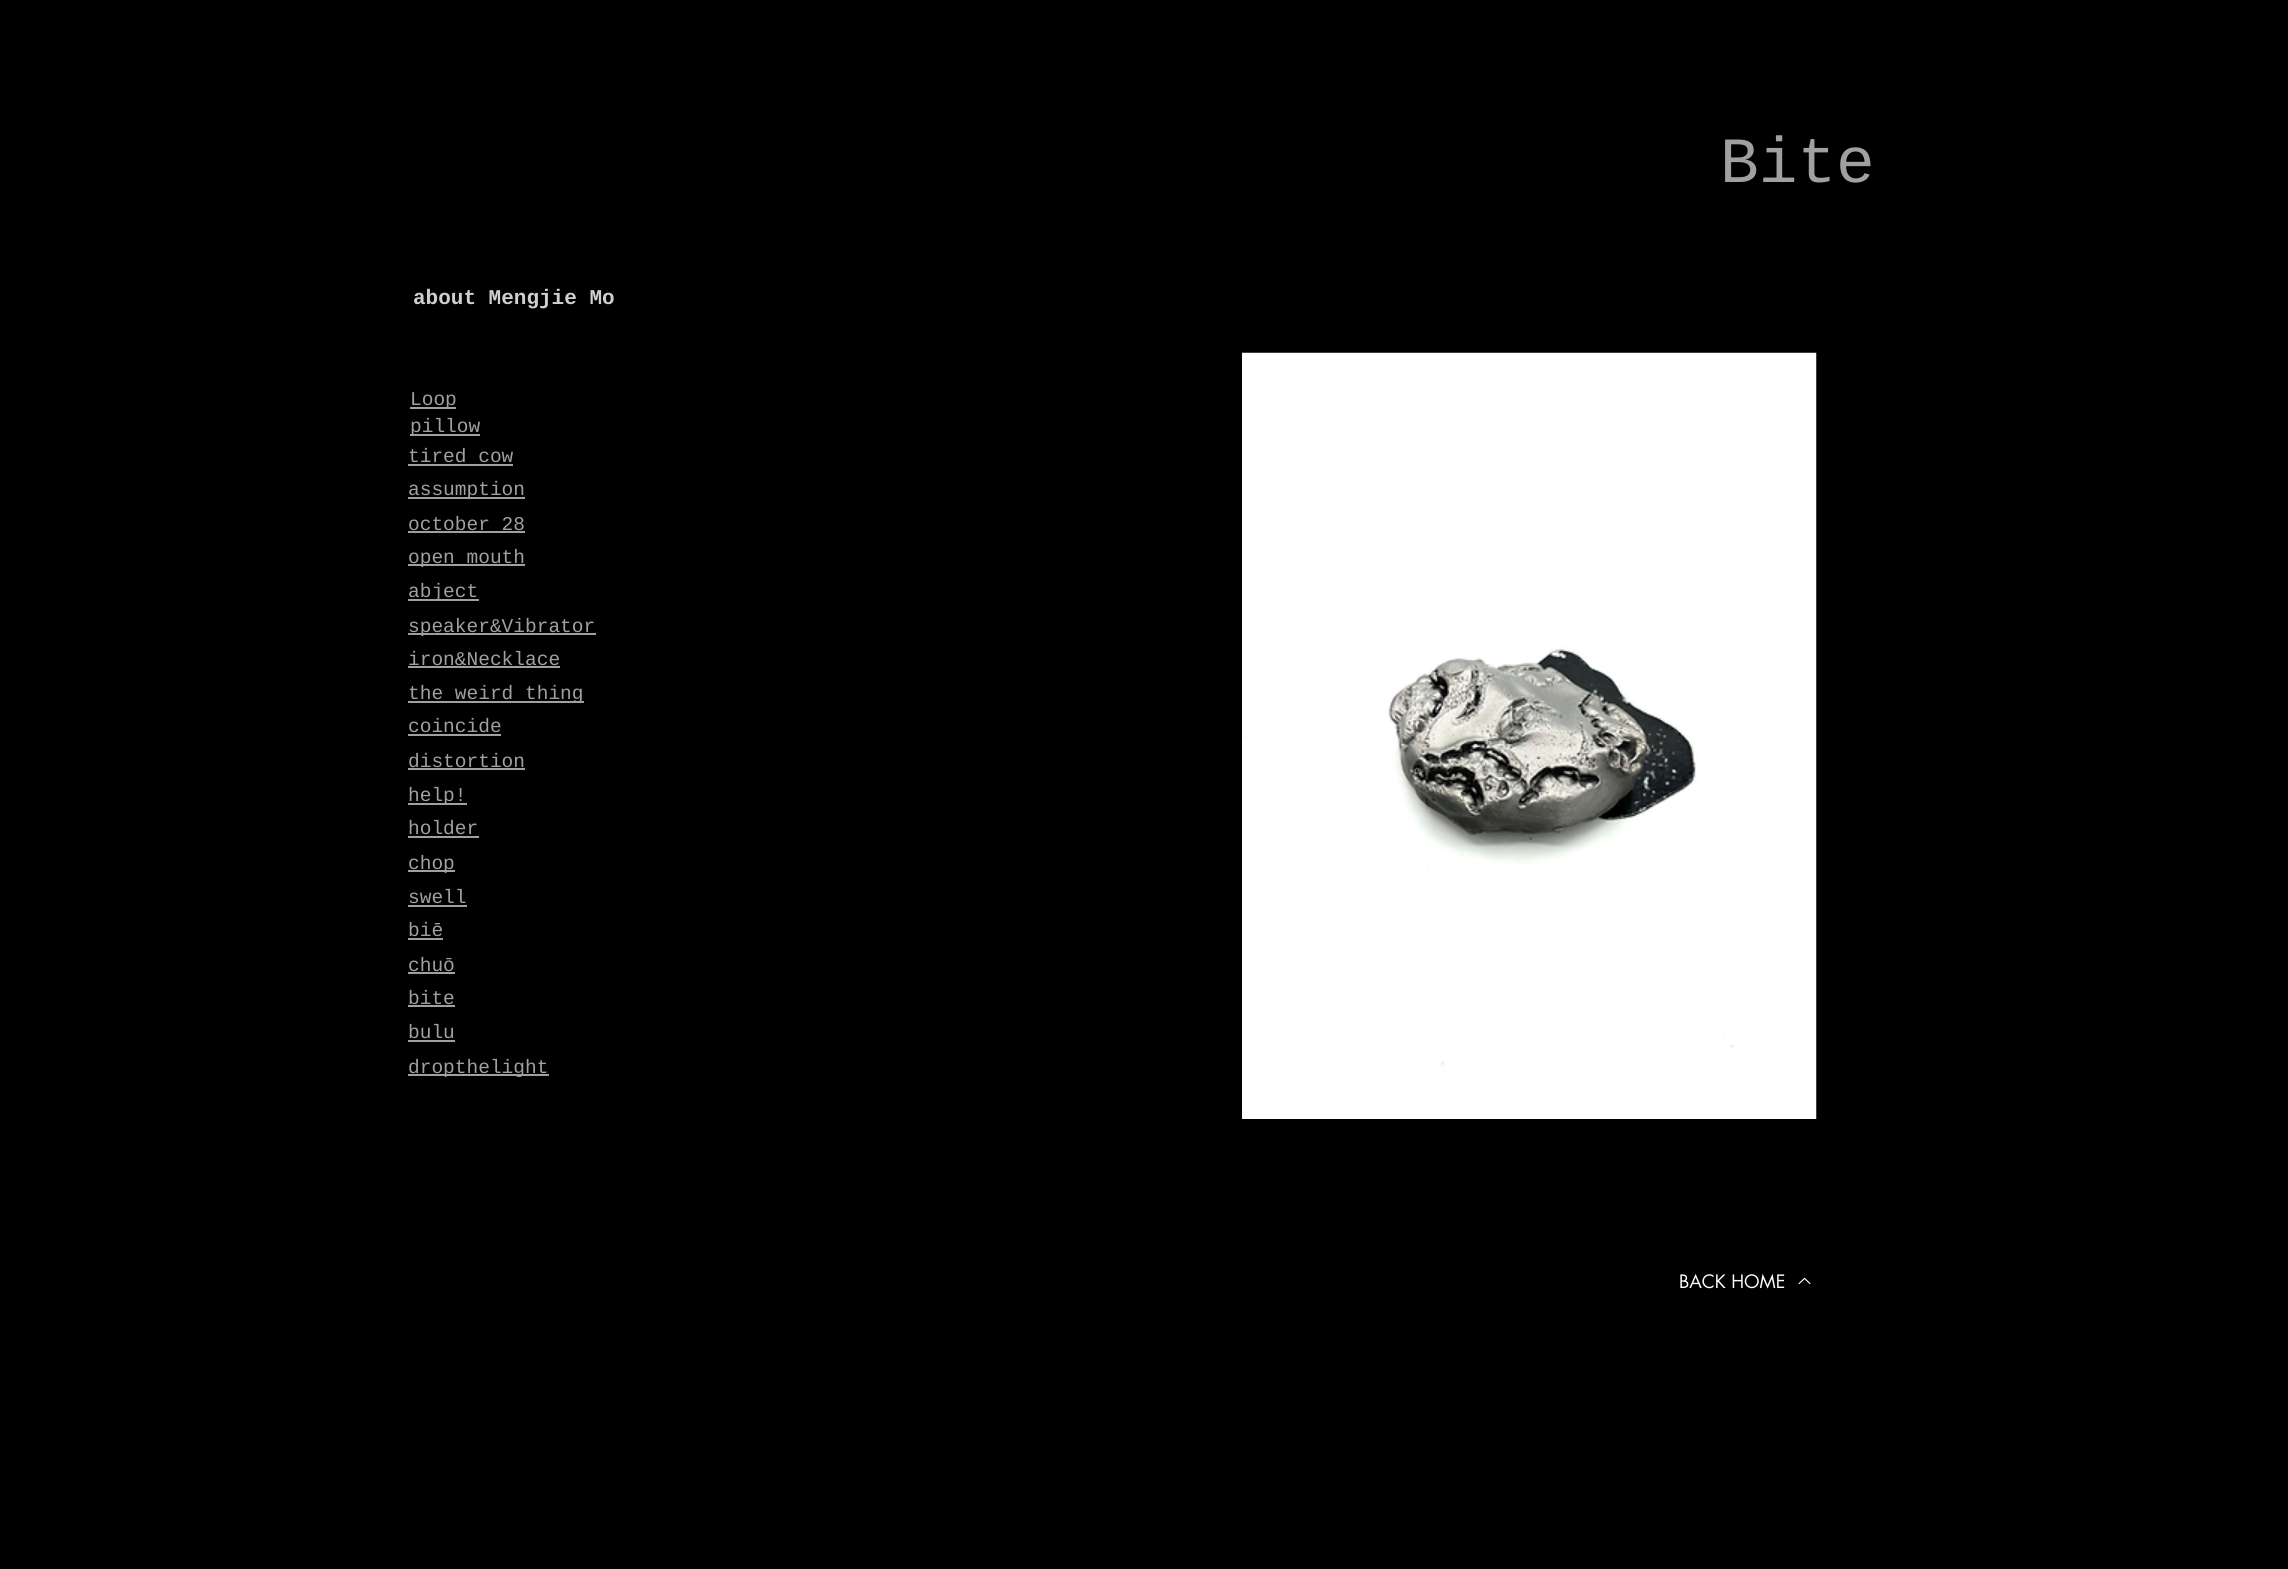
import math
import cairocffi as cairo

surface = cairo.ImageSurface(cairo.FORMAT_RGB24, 2288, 1569)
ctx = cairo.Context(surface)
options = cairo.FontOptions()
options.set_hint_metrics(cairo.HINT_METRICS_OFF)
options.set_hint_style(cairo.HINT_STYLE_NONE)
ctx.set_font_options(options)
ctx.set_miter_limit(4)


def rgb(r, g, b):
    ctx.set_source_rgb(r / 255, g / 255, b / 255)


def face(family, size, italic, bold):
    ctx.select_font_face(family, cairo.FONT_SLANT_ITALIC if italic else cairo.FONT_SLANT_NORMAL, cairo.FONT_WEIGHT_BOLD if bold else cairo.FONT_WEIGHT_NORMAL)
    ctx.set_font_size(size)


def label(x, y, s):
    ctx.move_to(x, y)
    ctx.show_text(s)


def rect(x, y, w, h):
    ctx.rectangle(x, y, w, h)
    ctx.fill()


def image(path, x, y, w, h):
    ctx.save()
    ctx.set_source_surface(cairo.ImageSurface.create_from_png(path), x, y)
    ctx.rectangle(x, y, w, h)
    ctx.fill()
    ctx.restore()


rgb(0, 0, 0)
ctx.paint()
face('Liberation Mono', 21, 0, 1)
rgb(208, 207, 205)
label(413, 304, 'about Mengjie Mo')
rgb(161, 160, 158)
rect(410, 407, 46, 2)
face('Liberation Mono', 19.5, 0, 0)
label(410, 405, 'Loop')
rect(410, 434, 70, 2)
label(410, 432, 'pillow')
label(408, 462, 'tired cow')
rect(408, 464, 105, 2)
rect(408, 497, 117, 2)
label(408, 495, 'assumption')
label(408, 530, 'october 28')
rect(408, 531, 117, 2)
rect(408, 564, 117, 2)
label(408, 563, 'open mouth')
rect(408, 599, 71, 2)
label(408, 597, 'abject')
rect(408, 633, 188, 2)
label(408, 632, 'speaker&Vibrator')
label(408, 665, 'iron&Necklace')
rect(408, 666, 152, 2)
rect(408, 701, 176, 2)
label(408, 699, 'the weird thing')
label(408, 732, 'coincide')
rect(408, 734, 93, 2)
label(408, 767, 'distortion')
rect(408, 768, 117, 2)
rect(408, 803, 59, 2)
label(408, 801, 'help!')
label(408, 834, 'holder')
rect(408, 836, 71, 2)
rect(408, 870, 47, 2)
label(408, 869, 'chop')
label(408, 903, 'swell')
rect(408, 905, 59, 2)
label(408, 936, 'biē')
rect(408, 938, 35, 2)
label(408, 971, 'chuō')
rect(408, 972, 47, 2)
label(408, 1004, 'bite')
rect(408, 1005, 47, 2)
label(408, 1038, 'bulu')
rect(408, 1040, 47, 2)
rect(408, 1074, 141, 2)
label(408, 1073, 'dropthelight')
face('Liberation Mono', 64.5, 0, 0)
label(1720, 182, 'Bite')
image('image0.png', 1242, 352, 575, 767)
face('futura', 18, 0, 0)
rgb(255, 255, 255)
label(1679, 1288, 'BACK HOME')
image('image1.png', 1798, 1277, 13, 8)
surface.write_to_png('render.png')
